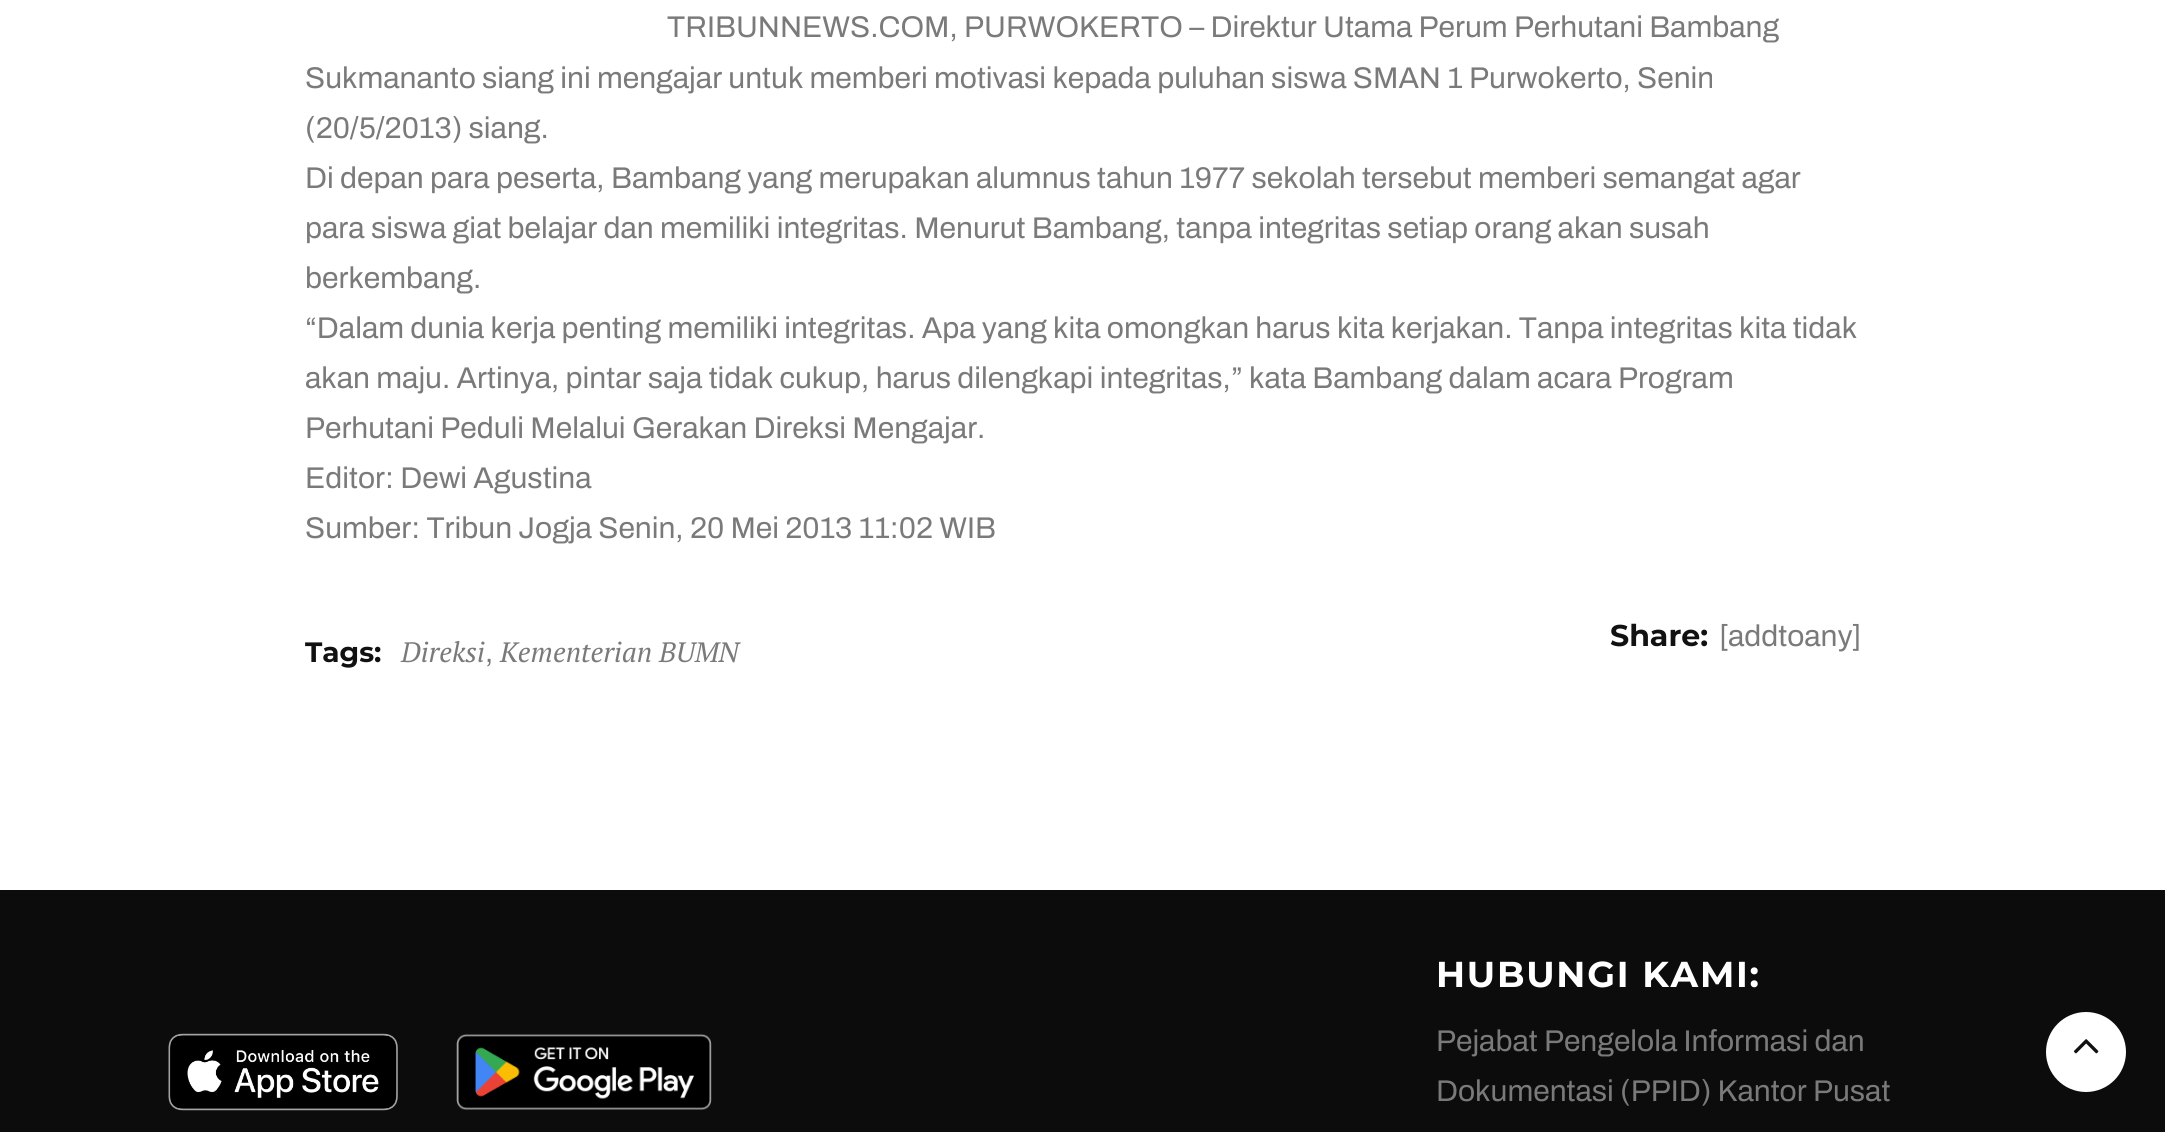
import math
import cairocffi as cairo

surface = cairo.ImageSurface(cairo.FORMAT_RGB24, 2165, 1132)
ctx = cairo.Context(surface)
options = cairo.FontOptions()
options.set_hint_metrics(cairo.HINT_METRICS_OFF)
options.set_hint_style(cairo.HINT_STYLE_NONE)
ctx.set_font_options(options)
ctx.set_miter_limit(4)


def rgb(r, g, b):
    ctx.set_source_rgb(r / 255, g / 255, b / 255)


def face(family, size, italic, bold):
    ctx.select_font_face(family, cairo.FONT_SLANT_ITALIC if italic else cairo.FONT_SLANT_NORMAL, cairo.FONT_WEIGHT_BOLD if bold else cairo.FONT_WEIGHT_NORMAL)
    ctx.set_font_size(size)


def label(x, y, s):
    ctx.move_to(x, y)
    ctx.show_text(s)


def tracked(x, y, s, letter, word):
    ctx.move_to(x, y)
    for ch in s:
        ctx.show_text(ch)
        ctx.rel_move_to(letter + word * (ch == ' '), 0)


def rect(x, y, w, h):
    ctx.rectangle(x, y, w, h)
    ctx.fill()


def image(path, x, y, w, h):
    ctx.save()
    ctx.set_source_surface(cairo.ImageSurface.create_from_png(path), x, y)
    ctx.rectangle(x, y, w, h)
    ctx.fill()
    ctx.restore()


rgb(255, 255, 255)
ctx.paint()
face('Archivo', 30, 0, 0)
rgb(122, 122, 122)
label(667, 37, 'TRIBUNNEWS.COM, PURWOKERTO – Direktur Utama Perum Perhutani Bambang')
label(305, 88, 'Sukmananto siang ini mengajar untuk memberi motivasi kepada puluhan siswa SMAN 1 Purwokerto, Senin')
label(305, 138, '(20/5/2013) siang.')
label(305, 188, 'Di depan para peserta, Bambang yang merupakan alumnus tahun 1977 sekolah tersebut memberi semangat agar')
label(305, 238, 'para siswa giat belajar dan memiliki integritas. Menurut Bambang, tanpa integritas setiap orang akan susah')
label(305, 288, 'berkembang.')
label(305, 338, '“Dalam dunia kerja penting memiliki integritas. Apa yang kita omongkan harus kita kerjakan. Tanpa integritas kita tidak')
label(305, 388, 'akan maju. Artinya, pintar saja tidak cukup, harus dilengkapi integritas,” kata Bambang dalam acara Program')
label(305, 438, 'Perhutani Peduli Melalui Gerakan Direksi Mengajar.')
label(305, 488, 'Editor: Dewi Agustina')
label(305, 538, 'Sumber: Tribun Jogja Senin, 20 Mei 2013 11:02 WIB')
face('Montserrat', 28, 0, 1)
rgb(17, 17, 17)
label(305, 662, 'Tags:')
face('PT Serif', 28, 1, 0)
rgb(122, 122, 122)
label(401, 662, 'Direksi')
face('Archivo', 30, 0, 0)
label(485, 662, ',')
face('PT Serif', 28, 1, 0)
label(500, 662, 'Kementerian BUMN')
face('Montserrat', 30, 0, 1)
rgb(17, 17, 17)
label(1610, 646, 'Share:')
face('Archivo', 30, 0, 0)
rgb(122, 122, 122)
label(1719, 646, '[addtoany]')
rgb(12, 12, 12)
rect(0, 890, 2165, 242)
image('image0.png', 168, 1033, 230, 78)
image('image1.png', 456, 1034, 256, 76)
face('Montserrat', 36, 0, 1)
rgb(255, 255, 255)
tracked(1436, 987, 'HUBUNGI KAMI:', 1.75, 0)
face('Archivo', 30, 0, 0)
rgb(122, 122, 122)
label(1436, 1051, 'Pejabat Pengelola Informasi dan')
label(1436, 1101, 'Dokumentasi (PPID) Kantor Pusat')
rgb(255, 255, 255)
ctx.new_path()
ctx.arc(2086, 1052, 40, 0, 2 * math.pi)
ctx.fill()
image('image2.png', 2073, 1039, 26, 15)
surface.write_to_png('render.png')
